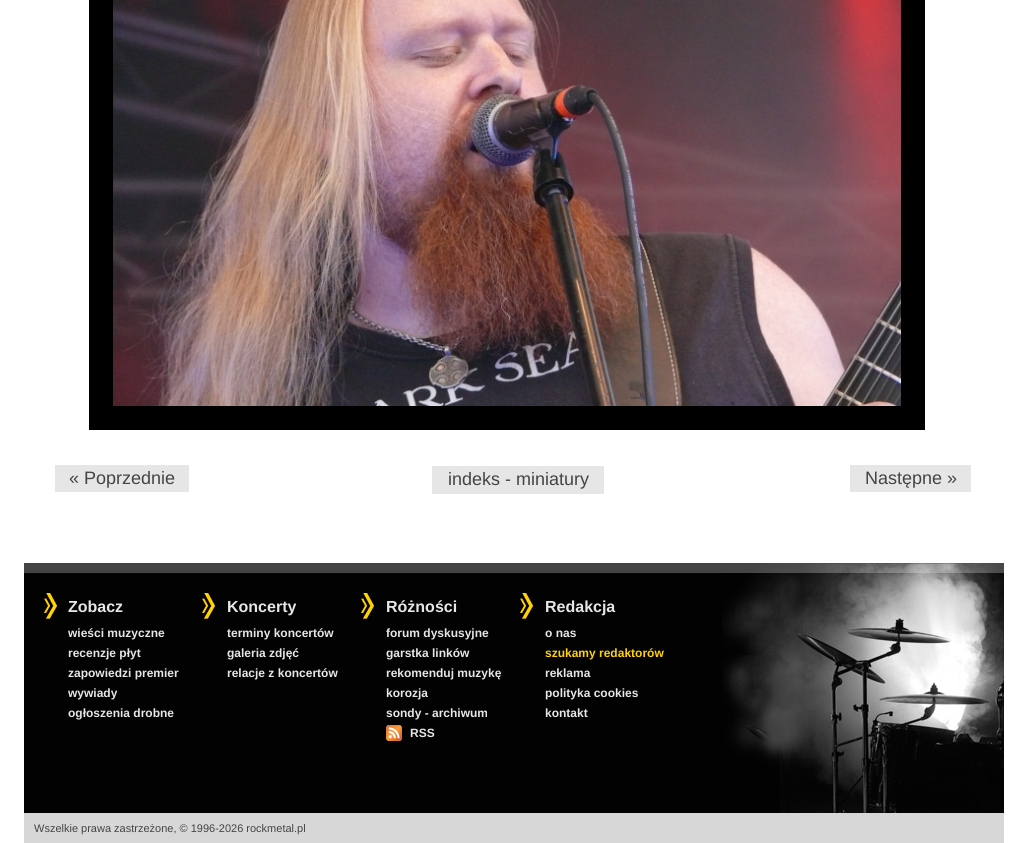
import math
import cairocffi as cairo

surface = cairo.ImageSurface(cairo.FORMAT_RGB24, 1027, 843)
ctx = cairo.Context(surface)
options = cairo.FontOptions()
options.set_hint_metrics(cairo.HINT_METRICS_OFF)
options.set_hint_style(cairo.HINT_STYLE_NONE)
ctx.set_font_options(options)
ctx.set_miter_limit(4)


def rgb(r, g, b):
    ctx.set_source_rgb(r / 255, g / 255, b / 255)


def face(family, size, italic, bold):
    ctx.select_font_face(family, cairo.FONT_SLANT_ITALIC if italic else cairo.FONT_SLANT_NORMAL, cairo.FONT_WEIGHT_BOLD if bold else cairo.FONT_WEIGHT_NORMAL)
    ctx.set_font_size(size)


def label(x, y, s):
    ctx.move_to(x, y)
    ctx.show_text(s)


def rect(x, y, w, h):
    ctx.rectangle(x, y, w, h)
    ctx.fill()


def image(path, x, y, w, h):
    ctx.save()
    ctx.set_source_surface(cairo.ImageSurface.create_from_png(path), x, y)
    ctx.rectangle(x, y, w, h)
    ctx.fill()
    ctx.restore()


rgb(255, 255, 255)
ctx.paint()
rgb(0, 0, 0)
rect(89, 0, 836, 430)
image('image0.png', 113, 0, 788, 406)
rgb(230, 230, 230)
rect(55, 465, 134, 27)
face('Liberation Sans', 18, 0, 0)
rgb(68, 68, 68)
label(69, 484, '« Poprzednie')
rgb(230, 230, 230)
rect(432, 466, 172, 28)
rgb(68, 68, 68)
label(448, 485, 'indeks - miniatury')
rgb(230, 230, 230)
rect(850, 465, 121, 27)
rgb(68, 68, 68)
label(865, 484, 'Następne »')
image('image1.png', 24, 563, 698, 250)
image('image2.png', 722, 563, 282, 250)
image('image3.png', 44, 593, 13, 26)
face('Liberation Sans', 16, 0, 1)
rgb(230, 230, 230)
label(68, 612, 'Zobacz')
face('Liberation Sans', 12, 0, 1)
label(68, 637, 'wieści muzyczne')
label(68, 657, 'recenzje płyt')
label(68, 677, 'zapowiedzi premier')
label(68, 697, 'wywiady')
label(68, 717, 'ogłoszenia drobne')
image('image3.png', 202, 593, 13, 26)
face('Liberation Sans', 16, 0, 1)
label(227, 612, 'Koncerty')
face('Liberation Sans', 12, 0, 1)
label(227, 637, 'terminy koncertów')
label(227, 657, 'galeria zdjęć')
label(227, 677, 'relacje z koncertów')
image('image3.png', 361, 593, 13, 26)
face('Liberation Sans', 16, 0, 1)
label(386, 612, 'Różności')
face('Liberation Sans', 12, 0, 1)
label(386, 637, 'forum dyskusyjne')
label(386, 657, 'garstka linków')
label(386, 677, 'rekomenduj muzykę')
label(386, 697, 'korozja')
label(386, 717, 'sondy - archiwum')
image('image4.png', 386, 725, 16, 16)
label(410, 737, 'RSS')
image('image3.png', 520, 593, 13, 26)
face('Liberation Sans', 16, 0, 1)
label(545, 612, 'Redakcja')
face('Liberation Sans', 12, 0, 1)
label(545, 637, 'o nas')
rgb(255, 210, 0)
label(545, 657, 'szukamy redaktorów')
rgb(230, 230, 230)
label(545, 677, 'reklama')
label(545, 697, 'polityka cookies')
label(545, 717, 'kontakt')
rgb(215, 215, 215)
rect(24, 813, 980, 30)
face('Liberation Sans', 11, 0, 0)
rgb(68, 68, 68)
label(34, 832, 'Wszelkie prawa zastrzeżone, © 1996-2026 rockmetal.pl')
surface.write_to_png('render.png')
